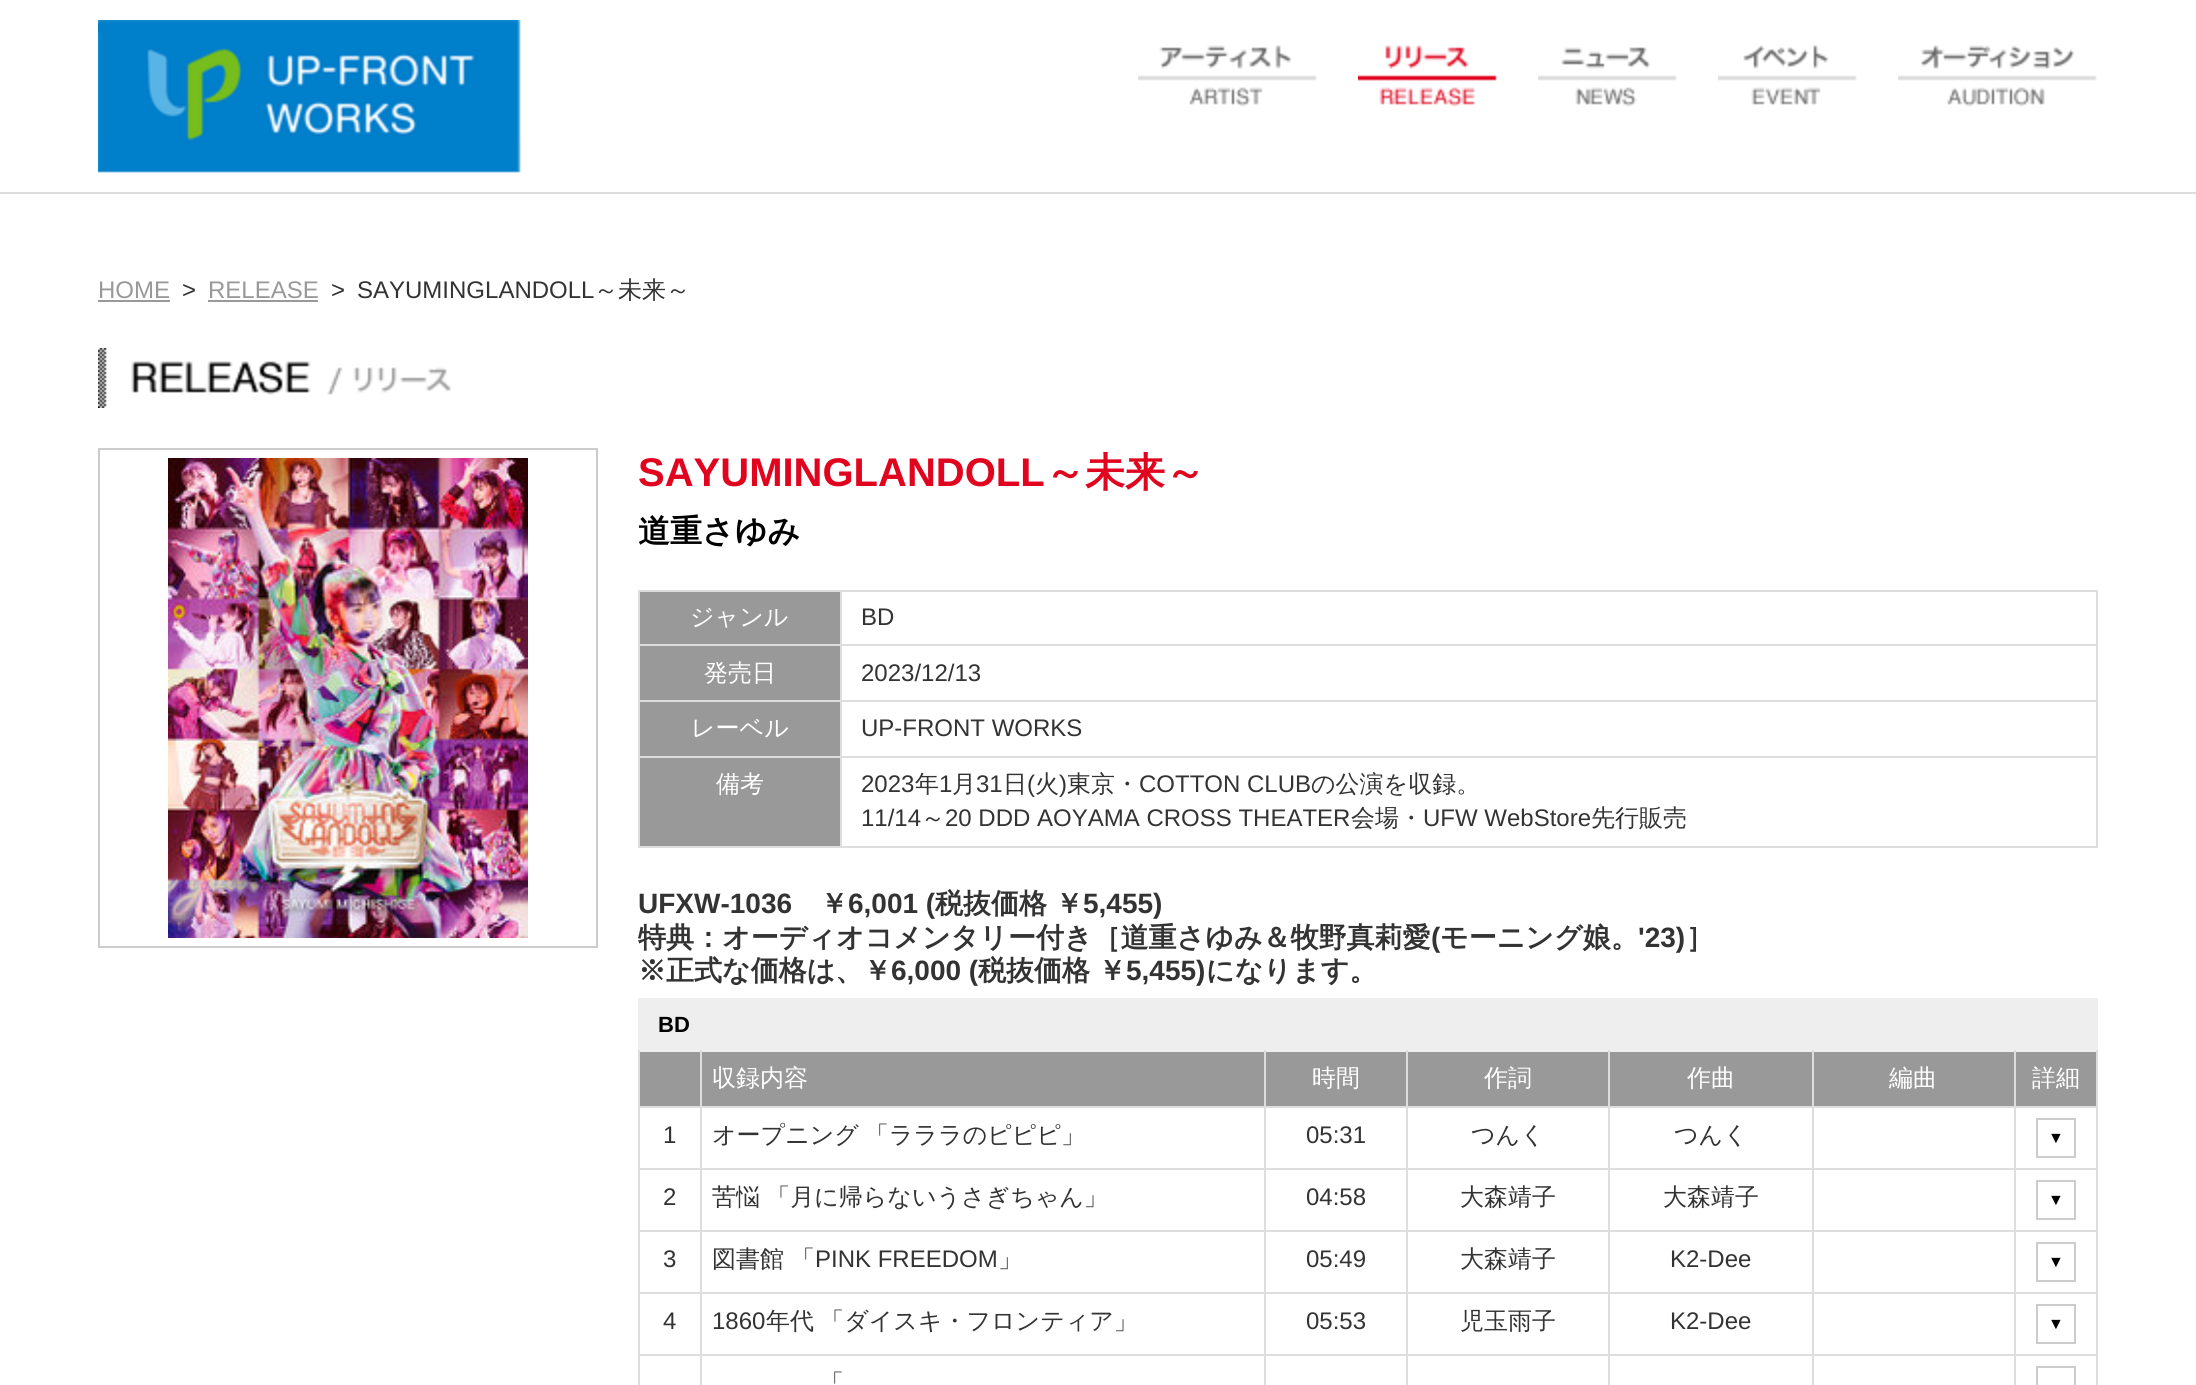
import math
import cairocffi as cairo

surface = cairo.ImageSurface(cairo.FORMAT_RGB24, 2196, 1385)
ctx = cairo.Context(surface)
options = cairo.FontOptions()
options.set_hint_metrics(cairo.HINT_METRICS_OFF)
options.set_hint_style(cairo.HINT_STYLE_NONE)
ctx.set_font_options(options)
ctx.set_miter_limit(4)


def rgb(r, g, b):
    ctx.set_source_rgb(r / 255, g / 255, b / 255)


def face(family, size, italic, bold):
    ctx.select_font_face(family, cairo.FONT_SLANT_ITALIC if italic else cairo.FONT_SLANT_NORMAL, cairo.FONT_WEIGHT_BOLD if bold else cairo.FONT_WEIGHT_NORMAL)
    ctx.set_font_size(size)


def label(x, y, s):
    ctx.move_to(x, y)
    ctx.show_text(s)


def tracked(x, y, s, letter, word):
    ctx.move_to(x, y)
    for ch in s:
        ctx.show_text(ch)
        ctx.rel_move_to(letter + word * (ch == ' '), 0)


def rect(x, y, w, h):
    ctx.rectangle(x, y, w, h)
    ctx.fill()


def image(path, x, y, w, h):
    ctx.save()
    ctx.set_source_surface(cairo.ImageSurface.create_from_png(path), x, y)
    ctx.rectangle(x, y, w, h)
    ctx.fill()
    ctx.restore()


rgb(255, 255, 255)
ctx.paint()
image('image0.png', 98, 20, 423, 153)
image('image1.png', 1138, 45, 179, 62)
image('image2.png', 1358, 45, 139, 62)
image('image3.png', 1538, 47, 139, 60)
image('image4.png', 1718, 45, 139, 60)
image('image5.png', 1898, 45, 199, 62)
rgb(221, 221, 221)
rect(0, 192, 2196, 2)
face('Liberation Sans', 24, 0, 0)
rgb(153, 153, 153)
label(98, 298, 'HOME')
rect(98, 300, 72, 2)
rgb(51, 51, 51)
label(182, 298, '>')
rgb(153, 153, 153)
label(208, 298, 'RELEASE')
rect(208, 300, 110, 2)
rgb(51, 51, 51)
label(331, 298, '> SAYUMINGLANDOLL')
face('WenQuanYi Zen Hei Medium', 24, 0, 0)
label(594, 298, '～未来～')
image('image6.png', 98, 348, 353, 60)
ctx.rectangle(99, 449, 498, 498)
rgb(204, 204, 204)
ctx.stroke()
image('image7.png', 168, 458, 360, 480)
face('Liberation Sans', 40, 0, 1)
rgb(224, 4, 30)
label(638, 486, 'SAYUMINGLANDOLL')
face('WenQuanYi Zen Hei', 40, 0, 1)
label(1045, 486, '～未来～')
face('WenQuanYi Zen Hei', 32, 0, 1)
rgb(0, 0, 0)
label(638, 542, '道重さゆみ')
rgb(153, 153, 153)
rect(640, 592, 200, 52)
rgb(221, 221, 221)
rect(840, 590, 1258, 2)
rect(840, 644, 1258, 2)
rect(840, 700, 1258, 2)
rect(840, 756, 1258, 2)
rect(2096, 756, 2, 92)
rect(840, 846, 1258, 2)
rect(840, 756, 2, 92)
rect(638, 756, 204, 2)
rect(840, 700, 2, 58)
rect(638, 700, 204, 2)
rect(840, 644, 2, 58)
rect(638, 644, 204, 2)
rect(840, 590, 2, 56)
rect(638, 590, 204, 2)
rect(638, 846, 204, 2)
rect(638, 756, 2, 92)
rect(638, 700, 2, 58)
rect(638, 644, 2, 58)
rect(638, 590, 2, 56)
face('WenQuanYi Zen Hei Medium', 24, 0, 0)
rgb(255, 255, 255)
label(690, 625, 'ジャンル')
rgb(221, 221, 221)
rect(2096, 700, 2, 58)
rect(2096, 644, 2, 58)
rect(2096, 590, 2, 56)
face('Liberation Sans', 24, 0, 0)
rgb(51, 51, 51)
label(861, 625, 'BD')
rgb(153, 153, 153)
rect(640, 646, 200, 54)
face('WenQuanYi Zen Hei Medium', 24, 0, 0)
rgb(255, 255, 255)
label(704, 681, '発売日')
face('Liberation Sans', 24, 0, 0)
rgb(51, 51, 51)
label(861, 681, '2023/12/13')
rgb(153, 153, 153)
rect(640, 702, 200, 54)
face('WenQuanYi Zen Hei Medium', 24, 0, 0)
rgb(255, 255, 255)
label(691, 736, 'レーベル')
face('Liberation Sans', 24, 0, 0)
rgb(51, 51, 51)
label(861, 736, 'UP-FRONT WORKS')
rgb(153, 153, 153)
rect(640, 758, 200, 88)
face('WenQuanYi Zen Hei Medium', 24, 0, 0)
rgb(255, 255, 255)
label(716, 792, '備考')
face('Liberation Sans', 24, 0, 0)
rgb(51, 51, 51)
label(861, 792, '2023')
face('WenQuanYi Zen Hei Medium', 24, 0, 0)
label(915, 792, '年')
face('Liberation Sans', 24, 0, 0)
label(939, 792, '1')
face('WenQuanYi Zen Hei Medium', 24, 0, 0)
label(952, 792, '月')
face('Liberation Sans', 24, 0, 0)
label(976, 792, '31')
face('WenQuanYi Zen Hei Medium', 24, 0, 0)
label(1003, 792, '日')
face('Liberation Sans', 24, 0, 0)
label(1027, 792, '(')
face('WenQuanYi Zen Hei Medium', 24, 0, 0)
label(1035, 792, '火')
face('Liberation Sans', 24, 0, 0)
label(1059, 792, ')')
face('WenQuanYi Zen Hei Medium', 24, 0, 0)
label(1067, 792, '東京・')
face('Liberation Sans', 24, 0, 0)
label(1139, 792, 'COTTON CLUB')
face('WenQuanYi Zen Hei Medium', 24, 0, 0)
label(1311, 792, 'の公演を収録。')
face('Liberation Sans', 24, 0, 0)
label(861, 826, '11/14')
face('WenQuanYi Zen Hei Medium', 24, 0, 0)
label(921, 826, '～')
face('Liberation Sans', 24, 0, 0)
label(945, 826, '20 DDD AOYAMA CROSS THEATER')
face('WenQuanYi Zen Hei Medium', 24, 0, 0)
label(1351, 826, '会場・')
face('Liberation Sans', 24, 0, 0)
label(1423, 826, 'UFW WebStore')
face('WenQuanYi Zen Hei Medium', 24, 0, 0)
label(1591, 826, '先行販売')
face('Liberation Sans', 28, 0, 1)
label(638, 913, 'UFXW-1036')
face('WenQuanYi Zen Hei', 28, 0, 1)
label(820, 913, '￥')
face('Liberation Sans', 28, 0, 1)
label(848, 913, '6,001 (')
face('WenQuanYi Zen Hei', 28, 0, 1)
label(935, 913, '税抜価格')
label(1055, 913, '￥')
face('Liberation Sans', 28, 0, 1)
label(1083, 913, '5,455)')
face('WenQuanYi Zen Hei', 28, 0, 1)
label(638, 947, '特典：オーディオコメンタリー付き［道重さゆみ＆牧野真莉愛')
face('Liberation Sans', 28, 0, 1)
label(1431, 947, '(')
face('WenQuanYi Zen Hei', 28, 0, 1)
label(1440, 947, 'モーニング娘。')
face('Liberation Sans', 28, 0, 1)
label(1638, 947, '\'23)')
face('WenQuanYi Zen Hei', 28, 0, 1)
label(1686, 947, '］')
label(638, 980, '※正式な価格は、￥')
face('Liberation Sans', 28, 0, 1)
label(891, 980, '6,000 (')
face('WenQuanYi Zen Hei', 28, 0, 1)
label(978, 980, '税抜価格')
label(1098, 980, '￥')
face('Liberation Sans', 28, 0, 1)
label(1126, 980, '5,455)')
face('WenQuanYi Zen Hei', 28, 0, 1)
label(1206, 980, 'になります。')
rgb(238, 238, 238)
rect(638, 998, 1460, 54)
face('Liberation Sans', 22, 0, 1)
rgb(0, 0, 0)
label(658, 1032, 'BD')
rgb(153, 153, 153)
rect(640, 1052, 1456, 54)
rgb(221, 221, 221)
rect(2096, 1050, 2, 335)
rect(2014, 1354, 2, 31)
rect(2014, 1354, 84, 2)
rect(2014, 1292, 2, 64)
rect(2014, 1292, 84, 2)
rect(2014, 1230, 2, 64)
rect(2014, 1230, 84, 2)
rect(2014, 1168, 2, 64)
rect(2014, 1168, 84, 2)
rect(2014, 1106, 2, 64)
rect(2014, 1106, 84, 2)
rect(2014, 1050, 2, 58)
rect(1812, 1354, 2, 31)
rect(1812, 1354, 204, 2)
rect(1812, 1292, 2, 64)
rect(1812, 1292, 204, 2)
rect(1812, 1230, 2, 64)
rect(1812, 1230, 204, 2)
rect(1812, 1168, 2, 64)
rect(1812, 1168, 204, 2)
rect(1812, 1106, 2, 64)
rect(1812, 1106, 204, 2)
rect(1812, 1050, 2, 58)
rect(1608, 1354, 2, 31)
rect(1608, 1354, 206, 2)
rect(1608, 1292, 2, 64)
rect(1608, 1292, 206, 2)
rect(1608, 1230, 2, 64)
rect(1608, 1230, 206, 2)
rect(1608, 1168, 2, 64)
rect(1608, 1168, 206, 2)
rect(1608, 1106, 2, 64)
rect(1608, 1106, 206, 2)
rect(1608, 1050, 2, 58)
rect(1406, 1354, 2, 31)
rect(1406, 1354, 204, 2)
rect(1406, 1292, 2, 64)
rect(1406, 1292, 204, 2)
rect(1406, 1230, 2, 64)
rect(1406, 1230, 204, 2)
rect(1406, 1168, 2, 64)
rect(1406, 1168, 204, 2)
rect(1406, 1106, 2, 64)
rect(1406, 1106, 204, 2)
rect(1406, 1050, 2, 58)
rect(1264, 1354, 2, 31)
rect(1264, 1354, 144, 2)
rect(1264, 1292, 2, 64)
rect(1264, 1292, 144, 2)
rect(1264, 1230, 2, 64)
rect(1264, 1230, 144, 2)
rect(1264, 1168, 2, 64)
rect(1264, 1168, 144, 2)
rect(1264, 1106, 2, 64)
rect(1264, 1106, 144, 2)
rect(1264, 1050, 2, 58)
rect(700, 1354, 2, 31)
rect(700, 1354, 566, 2)
rect(700, 1292, 2, 64)
rect(700, 1292, 566, 2)
rect(700, 1230, 2, 64)
rect(700, 1230, 566, 2)
rect(700, 1168, 2, 64)
rect(700, 1168, 566, 2)
rect(700, 1106, 2, 64)
rect(700, 1106, 566, 2)
rect(700, 1050, 2, 58)
rect(638, 1354, 2, 31)
rect(638, 1354, 64, 2)
rect(638, 1292, 2, 64)
rect(638, 1292, 64, 2)
rect(638, 1230, 2, 64)
rect(638, 1230, 64, 2)
rect(638, 1168, 2, 64)
rect(638, 1168, 64, 2)
rect(638, 1106, 2, 64)
rect(638, 1106, 64, 2)
rect(638, 1050, 2, 58)
face('WenQuanYi Zen Hei Medium', 24, 0, 0)
rgb(255, 255, 255)
label(712, 1086, '収録内容')
label(1312, 1086, '時間')
label(1484, 1086, '作詞')
label(1687, 1086, '作曲')
label(1889, 1086, '編曲')
label(2032, 1086, '詳細')
face('Liberation Sans', 24, 0, 0)
rgb(51, 51, 51)
label(663, 1143, '1')
face('WenQuanYi Zen Hei Medium', 24, 0, 0)
tracked(712, 1143, 'オープニング 「ラララのピピピ」', 0, -1)
face('Liberation Sans', 24, 0, 0)
label(1306, 1143, '05:31')
face('WenQuanYi Zen Hei Medium', 24, 0, 0)
label(1471, 1143, 'つんく')
label(1674, 1143, 'つんく')
ctx.rectangle(2037, 1119, 38, 38)
rgb(204, 204, 204)
ctx.stroke()
face('Liberation Sans', 16, 0, 0)
rgb(0, 0, 0)
label(2048, 1143, '▼')
face('Liberation Sans', 24, 0, 0)
rgb(51, 51, 51)
label(663, 1205, '2')
face('WenQuanYi Zen Hei Medium', 24, 0, 0)
tracked(712, 1205, '苦悩 「月に帰らないうさぎちゃん」', 0, -1)
face('Liberation Sans', 24, 0, 0)
label(1306, 1205, '04:58')
face('WenQuanYi Zen Hei Medium', 24, 0, 0)
label(1460, 1205, '大森靖子')
label(1663, 1205, '大森靖子')
ctx.rectangle(2037, 1181, 38, 38)
rgb(204, 204, 204)
ctx.stroke()
face('Liberation Sans', 16, 0, 0)
rgb(0, 0, 0)
label(2048, 1205, '▼')
face('Liberation Sans', 24, 0, 0)
rgb(51, 51, 51)
label(663, 1267, '3')
face('WenQuanYi Zen Hei Medium', 24, 0, 0)
label(712, 1267, '図書館')
label(791, 1267, '「')
face('Liberation Sans', 24, 0, 0)
label(815, 1267, 'PINK FREEDOM')
face('WenQuanYi Zen Hei Medium', 24, 0, 0)
label(998, 1267, '」')
face('Liberation Sans', 24, 0, 0)
label(1306, 1267, '05:49')
face('WenQuanYi Zen Hei Medium', 24, 0, 0)
label(1460, 1267, '大森靖子')
face('Liberation Sans', 24, 0, 0)
label(1670, 1267, 'K2-Dee')
ctx.rectangle(2037, 1243, 38, 38)
rgb(204, 204, 204)
ctx.stroke()
face('Liberation Sans', 16, 0, 0)
rgb(0, 0, 0)
label(2048, 1267, '▼')
face('Liberation Sans', 24, 0, 0)
rgb(51, 51, 51)
label(663, 1329, '4')
label(712, 1329, '1860')
face('WenQuanYi Zen Hei Medium', 24, 0, 0)
tracked(766, 1329, '年代 「ダイスキ・フロンティア」', 0, -1)
face('Liberation Sans', 24, 0, 0)
label(1306, 1329, '05:53')
face('WenQuanYi Zen Hei Medium', 24, 0, 0)
label(1460, 1329, '児玉雨子')
face('Liberation Sans', 24, 0, 0)
label(1670, 1329, 'K2-Dee')
ctx.rectangle(2037, 1305, 38, 38)
rgb(204, 204, 204)
ctx.stroke()
face('Liberation Sans', 16, 0, 0)
rgb(0, 0, 0)
label(2048, 1329, '▼')
face('WenQuanYi Zen Hei Medium', 24, 0, 0)
rgb(51, 51, 51)
tracked(820, 1391, '「', 0, -1)
ctx.rectangle(2037, 1367, 38, 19)
rgb(204, 204, 204)
ctx.stroke()
surface.write_to_png('render.png')
